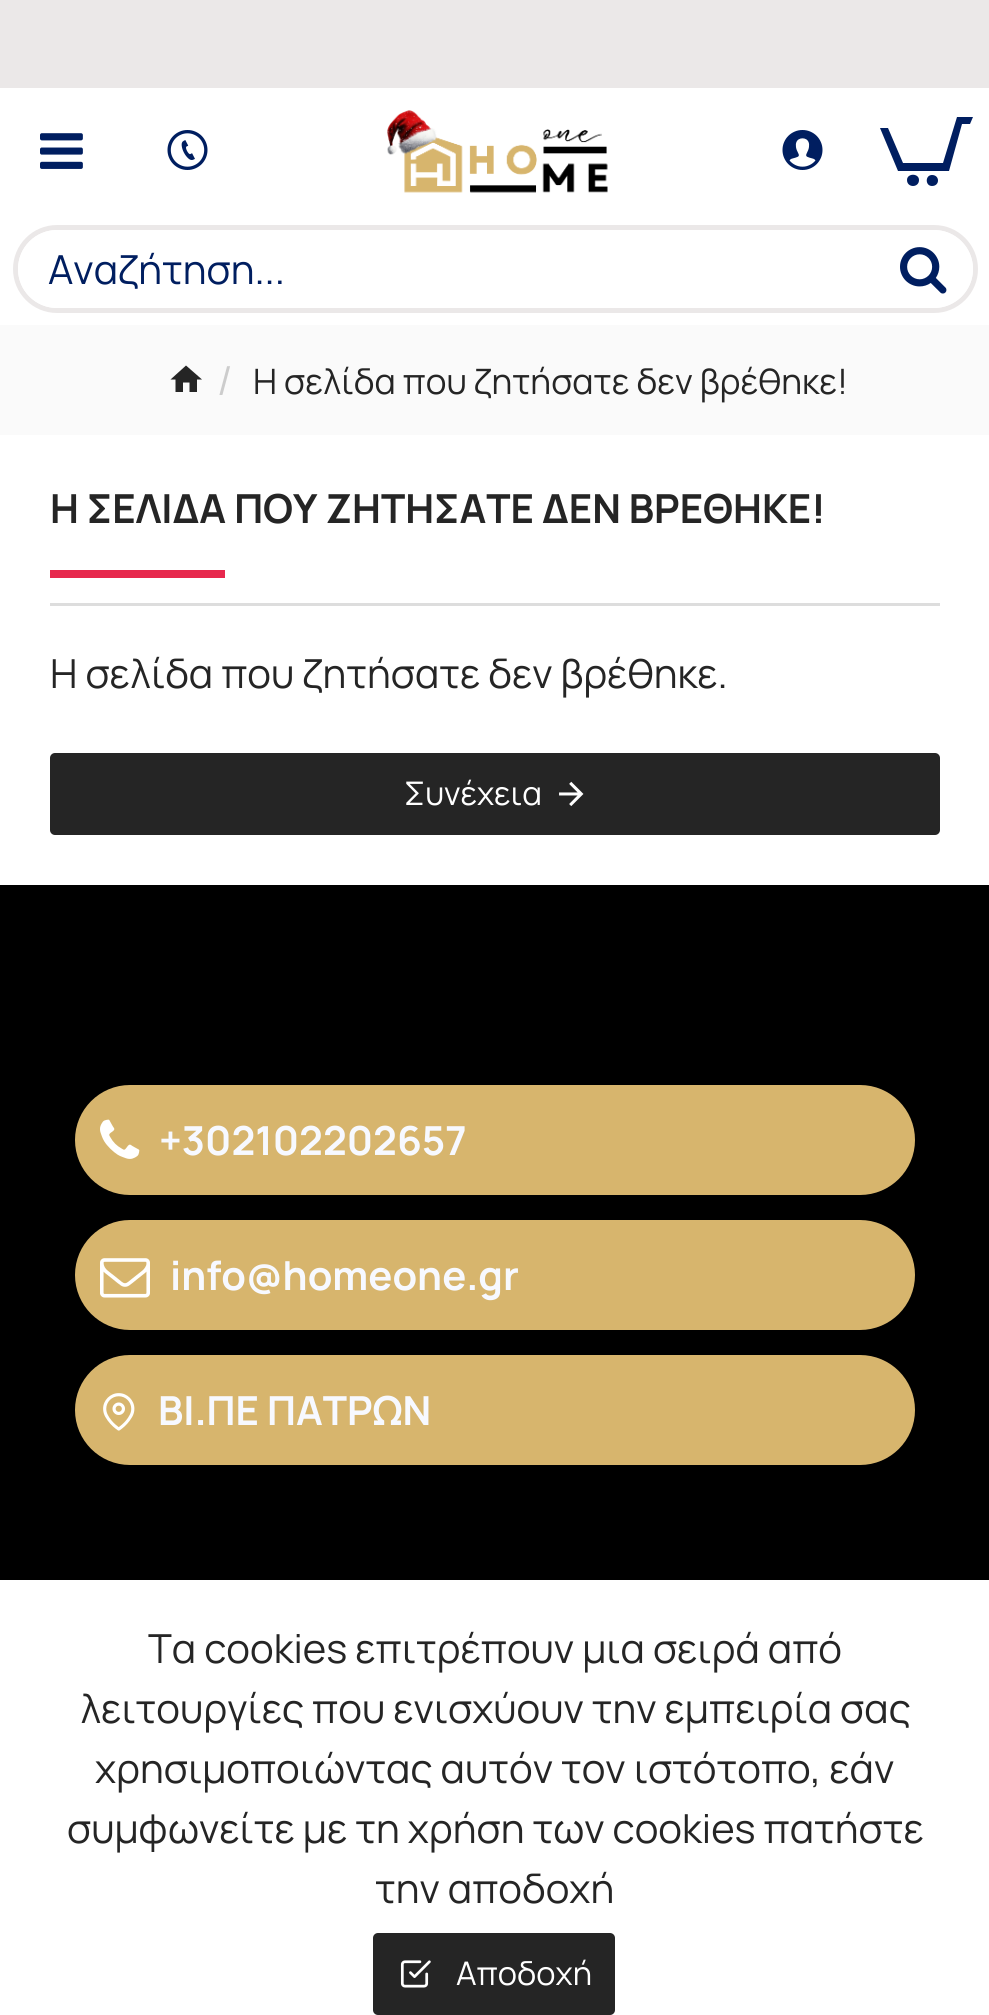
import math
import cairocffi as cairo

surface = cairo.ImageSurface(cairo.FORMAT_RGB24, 989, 2015)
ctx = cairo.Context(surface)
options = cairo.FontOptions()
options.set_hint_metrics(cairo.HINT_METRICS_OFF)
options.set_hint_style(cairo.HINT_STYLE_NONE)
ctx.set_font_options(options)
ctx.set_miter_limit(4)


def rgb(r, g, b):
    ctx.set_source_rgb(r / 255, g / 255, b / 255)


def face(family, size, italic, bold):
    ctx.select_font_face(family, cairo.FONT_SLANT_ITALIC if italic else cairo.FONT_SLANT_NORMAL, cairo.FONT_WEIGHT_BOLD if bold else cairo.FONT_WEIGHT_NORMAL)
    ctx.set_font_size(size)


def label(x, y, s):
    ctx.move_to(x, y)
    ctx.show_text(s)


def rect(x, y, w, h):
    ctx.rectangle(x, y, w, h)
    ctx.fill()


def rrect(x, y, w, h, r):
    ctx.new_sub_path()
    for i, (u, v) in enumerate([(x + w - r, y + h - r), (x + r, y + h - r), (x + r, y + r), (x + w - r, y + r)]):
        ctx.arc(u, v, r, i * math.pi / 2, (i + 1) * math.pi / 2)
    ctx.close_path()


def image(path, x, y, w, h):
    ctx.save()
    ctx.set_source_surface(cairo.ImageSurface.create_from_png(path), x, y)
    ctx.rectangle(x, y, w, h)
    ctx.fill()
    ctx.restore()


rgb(255, 255, 255)
ctx.paint()
rgb(235, 232, 232)
rect(0, 0, 989, 88)
image('image0.png', 40, 133, 43, 36)
image('image1.png', 167, 130, 41, 40)
image('image2.png', 387, 110, 221, 83)
image('image3.png', 782, 130, 41, 40)
rgb(0, 30, 96)
ctx.new_path()
ctx.move_to(919, 180)
ctx.curve_to(919, 188, 907, 188, 907, 180)
ctx.curve_to(907, 173, 919, 173, 919, 180)
ctx.close_path()
ctx.move_to(932, 175)
ctx.curve_to(925, 175, 925, 186, 932, 186)
ctx.curve_to(940, 186, 940, 175, 932, 175)
ctx.close_path()
ctx.move_to(957, 117)
ctx.line_to(943, 163)
ctx.line_to(903, 163)
ctx.line_to(888, 128)
ctx.line_to(880, 128)
ctx.line_to(898, 171)
ctx.line_to(949, 171)
ctx.line_to(962, 124)
ctx.line_to(970, 124)
ctx.line_to(973, 117)
ctx.close_path()
ctx.fill()
rrect(15.5, 227.5, 960, 83, 41.5)
rgb(235, 232, 232)
ctx.set_line_width(5)
ctx.stroke()
rgb(255, 255, 255)
ctx.new_path()
ctx.move_to(57, 230)
ctx.line_to(873, 230)
ctx.line_to(873, 308)
ctx.line_to(57, 308)
ctx.curve_to(35.5, 308, 18, 290.5, 18, 269)
ctx.curve_to(18, 247.5, 35.5, 230, 57, 230)
ctx.close_path()
ctx.fill()
face('Manrope', 40, 0, 0)
rgb(0, 30, 96)
label(48, 284, 'Αναζήτηση...')
rgb(255, 255, 255)
ctx.new_path()
ctx.move_to(873, 230)
ctx.line_to(934, 230)
ctx.curve_to(955.5, 230, 973, 247.5, 973, 269)
ctx.curve_to(973, 290.5, 955.5, 308, 934, 308)
ctx.line_to(873, 308)
ctx.close_path()
ctx.fill()
image('image4.png', 900, 247, 47, 47)
rgb(250, 250, 250)
rect(0, 325, 989, 110)
rgb(37, 37, 37)
ctx.new_path()
ctx.move_to(183, 392)
ctx.line_to(175.5, 392)
ctx.line_to(175.5, 379.5)
ctx.line_to(170.5, 379.5)
ctx.line_to(186, 365.5)
ctx.line_to(202, 379.5)
ctx.line_to(197, 379.5)
ctx.line_to(197, 392)
ctx.line_to(189.5, 392)
ctx.line_to(189.5, 382.5)
ctx.line_to(183, 382.5)
ctx.close_path()
ctx.fill()
rgb(204, 204, 204)
label(217, 395, '/')
face('Manrope', 35, 0, 0)
rgb(37, 37, 37)
label(253, 394, 'Η σελίδα που ζητήσατε δεν βρέθηκε!')
rgb(221, 221, 221)
rect(50, 603, 890, 3)
face('Manrope', 40, 0, 1)
rgb(37, 37, 37)
label(50, 523, 'Η ΣΕΛΙΔΑ ΠΟΥ ΖΗΤΗΣΑΤΕ ΔΕΝ ΒΡΕΘΗΚΕ!')
rgb(231, 40, 77)
rect(50, 570, 175, 8)
face('Manrope', 40, 0, 0)
rgb(37, 37, 37)
label(50, 688, 'Η σελίδα που ζητήσατε δεν βρέθηκε.')
rrect(50, 753, 890, 82, 5)
ctx.fill()
face('Manrope', 32.5, 0, 0)
rgb(255, 255, 255)
label(404, 805, 'Συνέχεια')
image('image5.png', 559, 781, 25, 25)
rgb(0, 0, 0)
rect(0, 885, 989, 695)
rgb(215, 181, 109)
rrect(75, 1085, 840, 110, 55)
ctx.fill()
image('image6.png', 100, 1119, 40, 40)
face('Manrope', 40, 0, 1)
rgb(247, 249, 255)
label(159, 1155, '+302102202657')
rgb(215, 181, 109)
rrect(75, 1220, 840, 110, 55)
ctx.fill()
image('image7.png', 100, 1258, 50, 40)
rgb(247, 249, 255)
label(170, 1290, 'info@homeone.gr')
rgb(215, 181, 109)
rrect(75, 1355, 840, 110, 55)
ctx.fill()
image('image8.png', 103, 1393, 32, 38)
rgb(247, 249, 255)
label(158, 1425, 'ΒΙ.ΠΕ ΠΑΤΡΩΝ')
face('Manrope', 40, 0, 0)
rgb(37, 37, 37)
label(148, 1663, 'Τα cookies επιτρέπουν μια σειρά από')
label(80, 1723, 'λειτουργίες που ενισχύουν την εμπειρία σας')
label(95, 1783, 'χρησιμοποιώντας αυτόν τον ιστότοπο, εάν')
label(67, 1843, 'συμφωνείτε με τη χρήση των cookies πατήστε')
label(375, 1903, 'την αποδοχή')
rrect(373, 1933, 242, 82, 5)
ctx.fill()
image('image9.png', 400, 1960, 31, 28)
face('Manrope', 32.5, 0, 0)
rgb(255, 255, 255)
label(456, 1985, 'Αποδοχή')
surface.write_to_png('render.png')
